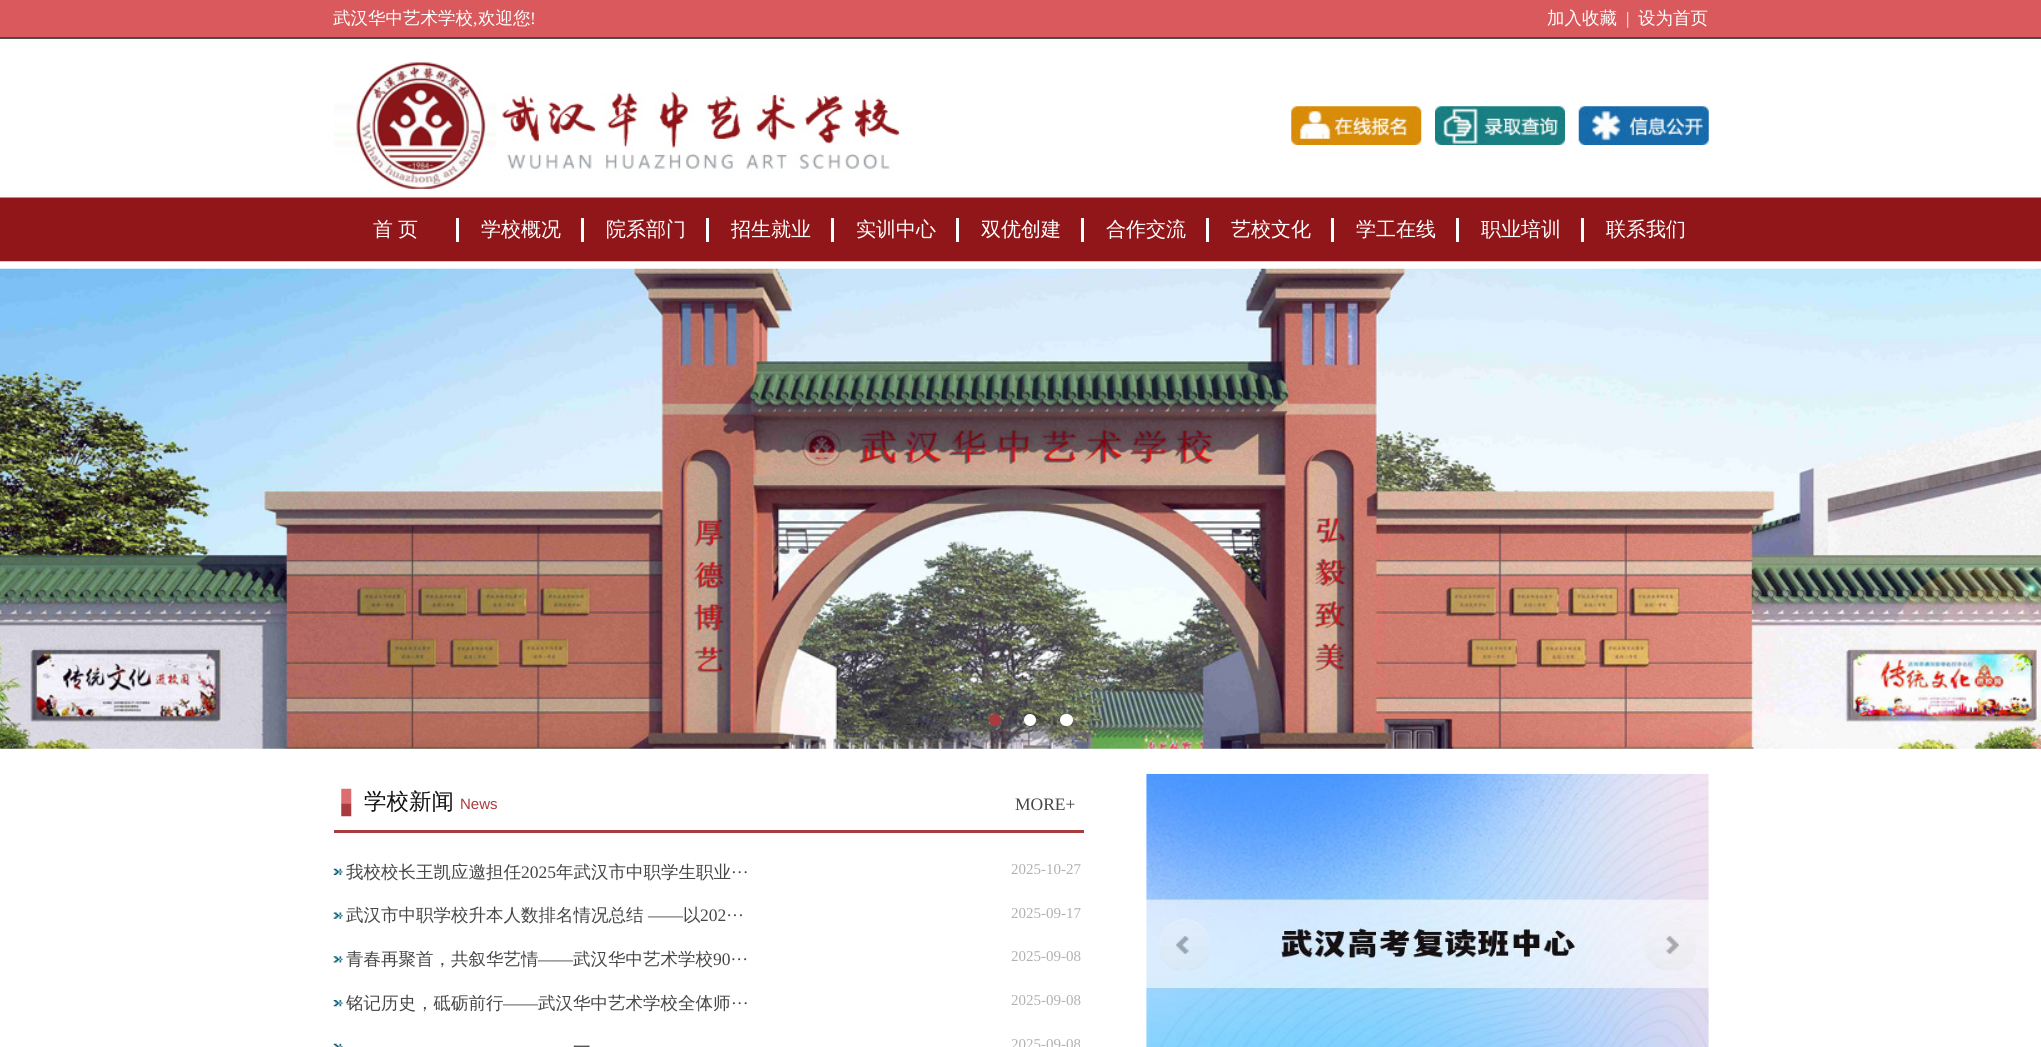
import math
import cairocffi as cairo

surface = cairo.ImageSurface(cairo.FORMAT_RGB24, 2041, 1047)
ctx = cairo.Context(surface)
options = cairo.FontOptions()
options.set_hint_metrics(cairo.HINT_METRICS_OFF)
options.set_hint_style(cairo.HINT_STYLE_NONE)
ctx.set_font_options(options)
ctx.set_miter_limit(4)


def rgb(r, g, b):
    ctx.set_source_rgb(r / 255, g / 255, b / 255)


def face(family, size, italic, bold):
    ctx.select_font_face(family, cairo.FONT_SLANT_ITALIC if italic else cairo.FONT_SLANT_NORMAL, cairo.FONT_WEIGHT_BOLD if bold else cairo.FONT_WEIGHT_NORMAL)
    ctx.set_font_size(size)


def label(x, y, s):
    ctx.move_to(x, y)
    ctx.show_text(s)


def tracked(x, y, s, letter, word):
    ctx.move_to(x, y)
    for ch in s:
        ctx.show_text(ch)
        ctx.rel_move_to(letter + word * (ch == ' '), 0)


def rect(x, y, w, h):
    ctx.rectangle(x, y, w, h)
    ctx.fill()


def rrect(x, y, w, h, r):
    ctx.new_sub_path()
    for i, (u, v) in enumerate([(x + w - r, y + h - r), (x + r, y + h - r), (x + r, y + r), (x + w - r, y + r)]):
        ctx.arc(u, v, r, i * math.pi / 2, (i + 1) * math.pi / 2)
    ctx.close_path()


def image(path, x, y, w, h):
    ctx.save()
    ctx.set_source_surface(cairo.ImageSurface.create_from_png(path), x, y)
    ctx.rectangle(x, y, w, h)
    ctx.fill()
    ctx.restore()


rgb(255, 255, 255)
ctx.paint()
rgb(217, 89, 92)
rect(0, 0, 2041, 38)
face('WenQuanYi Zen Hei Medium', 17.5, 0, 0)
rgb(255, 255, 255)
label(333, 24, '武汉华中艺术学校')
face('Liberation Serif', 17.5, 0, 0)
label(473, 24, ',')
face('WenQuanYi Zen Hei Medium', 17.5, 0, 0)
label(478, 24, '欢迎您')
face('Liberation Serif', 17.5, 0, 0)
label(530, 24, '!')
face('WenQuanYi Zen Hei Medium', 17.5, 0, 0)
label(1547, 24, '加入收藏')
face('Liberation Serif', 17.5, 0, 0)
label(1626, 24, '|')
face('WenQuanYi Zen Hei Medium', 17.5, 0, 0)
label(1638, 24, '设为首页')
image('image0.png', 0, 37, 2041, 225)
image('image1.png', 334, 62, 567, 127)
image('image2.png', 1291, 106, 131, 39)
image('image3.png', 1435, 106, 130, 39)
image('image4.png', 1578, 106, 131, 39)
rect(456, 218, 3, 24)
face('WenQuanYi Zen Hei Medium', 20, 0, 0)
tracked(373, 236, '首 页', 0, -1)
rect(581, 218, 3, 24)
label(481, 236, '学校概况')
rect(706, 218, 3, 24)
label(606, 236, '院系部门')
rect(831, 218, 3, 24)
label(731, 236, '招生就业')
rect(956, 218, 3, 24)
label(856, 236, '实训中心')
rect(1081, 218, 3, 24)
label(981, 236, '双优创建')
rect(1206, 218, 3, 24)
label(1106, 236, '合作交流')
rect(1331, 218, 3, 24)
label(1231, 236, '艺校文化')
rect(1456, 218, 3, 24)
label(1356, 236, '学工在线')
rect(1581, 218, 3, 24)
label(1481, 236, '职业培训')
label(1606, 236, '联系我们')
image('image5.png', 0, 268, 2041, 481)
rgb(169, 59, 62)
ctx.arc(995, 720, 6, 0, 2 * math.pi)
ctx.fill()
rgb(255, 255, 255)
ctx.arc(1030, 720, 6, 0, 2 * math.pi)
ctx.fill()
rrect(1060, 714, 13, 12, 6)
ctx.fill()
rgb(169, 59, 62)
rect(334, 830, 750, 3)
image('image6.png', 341, 788, 11, 29)
face('WenQuanYi Zen Hei Medium', 22.5, 0, 0)
rgb(17, 17, 17)
label(364, 809, '学校新闻')
face('Liberation Sans', 15, 0, 0)
rgb(169, 59, 62)
label(460, 809, 'News')
face('Liberation Serif', 17.5, 0, 0)
rgb(70, 70, 70)
label(1015, 810, 'MORE+')
image('image7.png', 333, 868, 10, 7)
face('WenQuanYi Zen Hei Medium', 17.5, 0, 0)
label(346, 878, '我校校长王凯应邀担任')
face('Liberation Serif', 17.5, 0, 0)
label(521, 878, '2025')
face('WenQuanYi Zen Hei Medium', 17.5, 0, 0)
label(556, 878, '年武汉市中职学生职业')
face('Liberation Serif', 17.5, 0, 0)
label(731, 878, '···')
face('Liberation Serif', 15, 0, 0)
rgb(179, 177, 178)
label(1011, 874, '2025-10-27')
image('image8.png', 333, 912, 10, 7)
face('WenQuanYi Zen Hei Medium', 17.5, 0, 0)
rgb(70, 70, 70)
label(346, 921, '武汉市中职学校升本人数排名情况总结')
face('Liberation Serif', 17.5, 0, 0)
label(648, 921, '——')
face('WenQuanYi Zen Hei Medium', 17.5, 0, 0)
label(683, 921, '以')
face('Liberation Serif', 17.5, 0, 0)
label(700, 921, '202···')
face('Liberation Serif', 15, 0, 0)
rgb(179, 177, 178)
label(1011, 918, '2025-09-17')
image('image9.png', 333, 956, 10, 7)
face('WenQuanYi Zen Hei Medium', 17.5, 0, 0)
rgb(70, 70, 70)
label(346, 965, '青春再聚首，共叙华艺情')
face('Liberation Serif', 17.5, 0, 0)
label(538, 965, '——')
face('WenQuanYi Zen Hei Medium', 17.5, 0, 0)
label(573, 965, '武汉华中艺术学校')
face('Liberation Serif', 17.5, 0, 0)
label(713, 965, '90···')
face('Liberation Serif', 15, 0, 0)
rgb(179, 177, 178)
label(1011, 961, '2025-09-08')
image('image10.png', 333, 1000, 10, 7)
face('WenQuanYi Zen Hei Medium', 17.5, 0, 0)
rgb(70, 70, 70)
label(346, 1009, '铭记历史，砥砺前行')
face('Liberation Serif', 17.5, 0, 0)
label(503, 1009, '——')
face('WenQuanYi Zen Hei Medium', 17.5, 0, 0)
label(538, 1009, '武汉华中艺术学校全体师')
face('Liberation Serif', 17.5, 0, 0)
label(731, 1009, '···')
face('Liberation Serif', 15, 0, 0)
rgb(179, 177, 178)
label(1011, 1005, '2025-09-08')
image('image11.png', 333, 1043, 10, 4)
face('WenQuanYi Zen Hei Medium', 17.5, 0, 0)
rgb(70, 70, 70)
label(573, 1053, '一')
face('Liberation Serif', 15, 0, 0)
rgb(179, 177, 178)
label(1011, 1049, '2025-09-08')
image('image12.png', 1146, 773, 563, 274)
image('image13.png', 1159, 919, 51, 51)
image('image14.png', 1645, 919, 51, 51)
surface.write_to_png('render.png')
